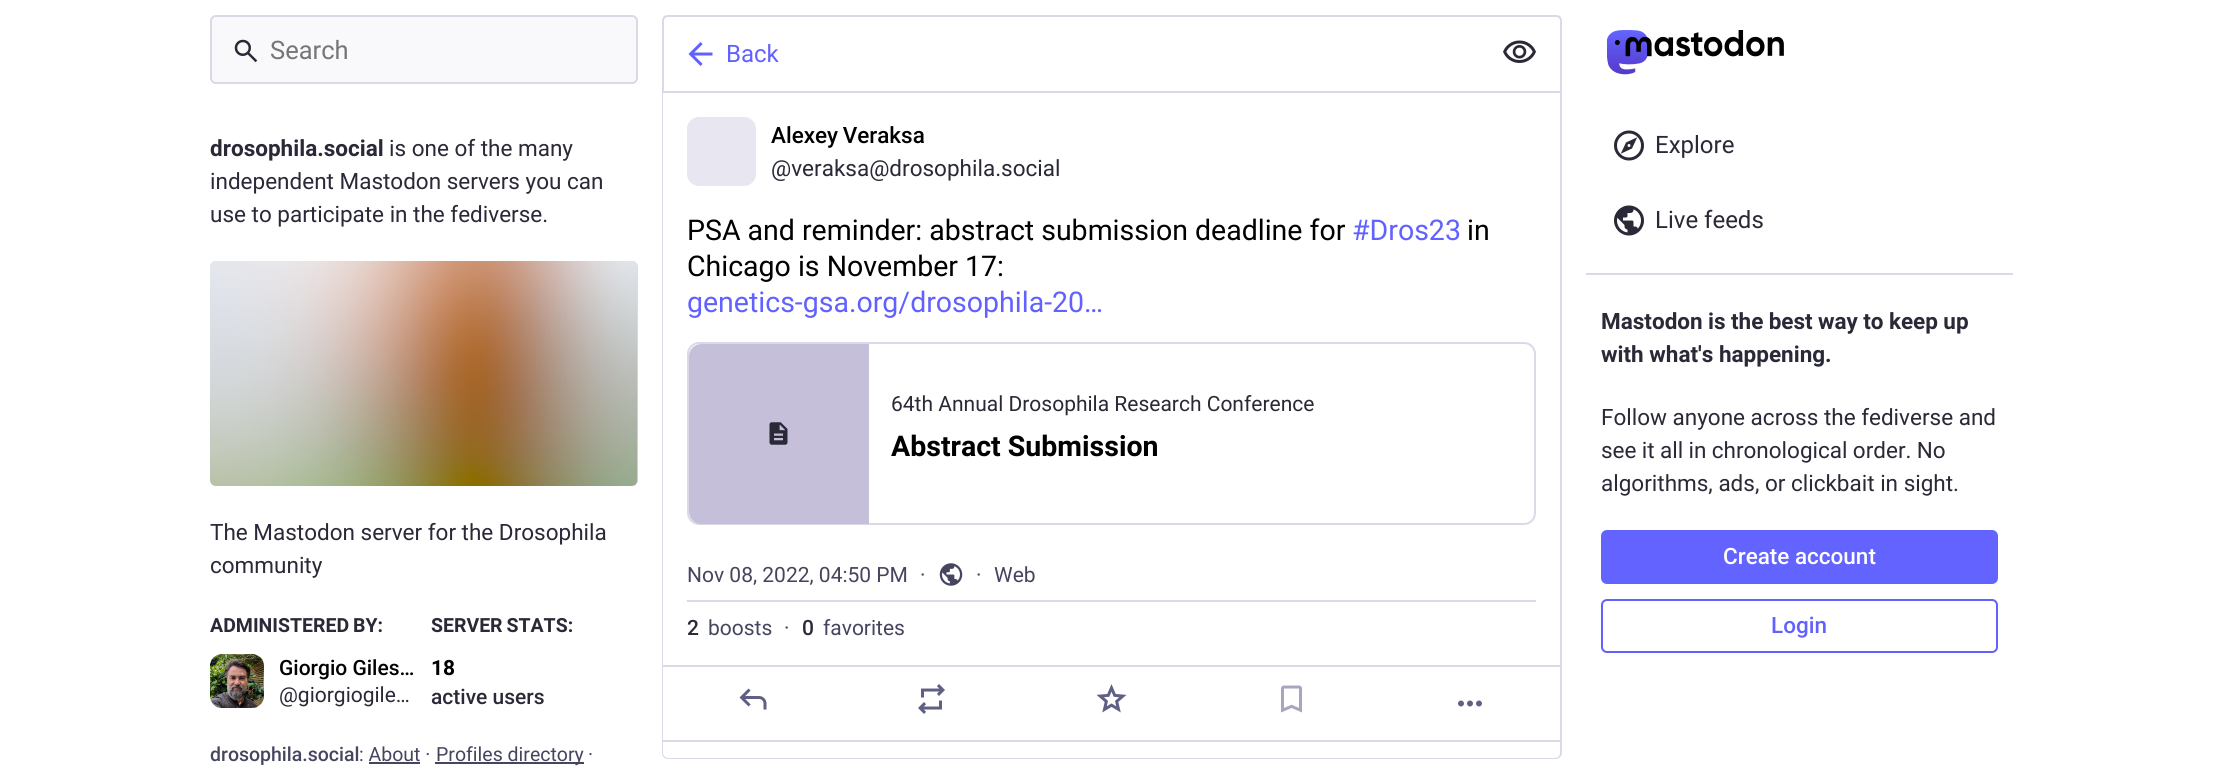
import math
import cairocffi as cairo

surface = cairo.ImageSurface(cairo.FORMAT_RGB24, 2223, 773)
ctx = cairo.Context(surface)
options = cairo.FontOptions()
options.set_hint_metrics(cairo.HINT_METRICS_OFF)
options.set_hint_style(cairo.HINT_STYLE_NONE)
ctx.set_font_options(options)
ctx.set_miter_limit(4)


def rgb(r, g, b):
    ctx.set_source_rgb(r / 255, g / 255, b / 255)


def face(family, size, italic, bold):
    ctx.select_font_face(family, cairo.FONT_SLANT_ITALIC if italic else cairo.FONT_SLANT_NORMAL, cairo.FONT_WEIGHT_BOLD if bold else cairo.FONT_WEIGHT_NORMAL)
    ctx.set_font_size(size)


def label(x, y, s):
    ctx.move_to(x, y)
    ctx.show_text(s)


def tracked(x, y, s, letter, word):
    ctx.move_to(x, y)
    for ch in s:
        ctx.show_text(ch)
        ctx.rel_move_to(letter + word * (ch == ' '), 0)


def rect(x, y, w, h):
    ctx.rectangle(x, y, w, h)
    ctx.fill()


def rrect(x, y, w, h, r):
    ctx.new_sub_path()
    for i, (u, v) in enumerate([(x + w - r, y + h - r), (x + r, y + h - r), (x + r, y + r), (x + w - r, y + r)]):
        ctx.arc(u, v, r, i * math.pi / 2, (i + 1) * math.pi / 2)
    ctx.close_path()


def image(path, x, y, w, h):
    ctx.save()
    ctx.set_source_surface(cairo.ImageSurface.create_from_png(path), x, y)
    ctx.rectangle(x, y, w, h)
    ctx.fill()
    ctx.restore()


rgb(255, 255, 255)
ctx.paint()
rgb(249, 249, 251)
rrect(211, 16, 426, 67, 5)
ctx.fill_preserve()
rgb(217, 217, 232)
ctx.stroke()
image('image0.png', 234, 39, 24, 24)
face('Roboto', 25.5, 0, 0)
rgb(117, 117, 117)
label(270, 59, 'Search')
face('Roboto', 22.5, 0, 1)
rgb(41, 41, 56)
label(210, 156, 'drosophila.social')
face('Roboto', 22.5, 0, 0)
label(389, 156, 'is one of the many')
label(210, 189, 'independent Mastodon servers you can')
label(210, 222, 'use to participate in the fediverse.')
rgb(221, 217, 232)
rrect(210, 261, 428, 225, 6)
ctx.fill()
image('image1.png', 210, 261, 428, 225)
rgb(41, 41, 56)
label(210, 540, 'The Mastodon server for the Drosophila')
label(210, 573, 'community')
face('Roboto', 19.5, 0, 1)
tracked(210, 632, 'ADMINISTERED BY:', 0, -1)
image('image2.png', 210, 654, 54, 54)
face('Roboto Medium', 21, 0, 0)
rgb(0, 0, 0)
label(279, 675, 'Giorgio Giles…')
face('Roboto', 21, 0, 0)
rgb(41, 41, 56)
label(279, 702, '@giorgiogile…')
face('Roboto', 19.5, 0, 1)
tracked(431, 632, 'SERVER STATS:', 0, -1)
face('Roboto', 21, 0, 1)
rgb(0, 0, 0)
label(431, 675, '18')
face('Roboto Medium', 21, 0, 0)
rgb(41, 41, 56)
label(431, 704, 'active users')
face('Roboto Medium', 19.5, 0, 0)
rgb(69, 69, 95)
label(210, 761, 'drosophila.social')
face('Roboto', 19.5, 0, 0)
label(359, 761, ': About ·')
rect(435, 762, 149, 2)
label(436, 761, 'Profiles directory')
label(588, 761, '·')
rect(369, 762, 51, 2)
ctx.new_path()
ctx.move_to(668, 16)
ctx.line_to(1556, 16)
ctx.curve_to(1559, 16, 1561, 18, 1561, 21)
ctx.line_to(1561, 92)
ctx.line_to(663, 92)
ctx.line_to(663, 21)
ctx.curve_to(663, 18, 665, 16, 668, 16)
ctx.close_path()
rgb(217, 217, 232)
ctx.stroke()
image('image3.png', 688, 42, 25, 24)
face('Roboto', 24, 0, 0)
rgb(97, 97, 255)
label(726, 62, 'Back')
image('image4.png', 1503, 40, 33, 23)
rgb(217, 217, 232)
ctx.set_fill_rule(cairo.FILL_RULE_EVEN_ODD)
ctx.new_path()
ctx.move_to(662, 93)
ctx.line_to(1562, 93)
ctx.line_to(1562, 753)
ctx.curve_to(1562, 756, 1559, 759, 1556, 759)
ctx.line_to(668, 759)
ctx.curve_to(664, 759, 662, 756, 662, 753)
ctx.close_path()
ctx.move_to(663, 93)
ctx.line_to(1560, 93)
ctx.line_to(1560, 753)
ctx.curve_to(1560, 755, 1558, 758, 1556, 758)
ctx.line_to(668, 758)
ctx.curve_to(665, 758, 663, 755, 663, 753)
ctx.close_path()
ctx.fill()
rgb(232, 230, 240)
rrect(687, 117, 69, 69, 12)
ctx.fill()
face('Roboto Medium', 22.5, 0, 0)
rgb(0, 0, 0)
tracked(771, 143, 'Alexey Veraksa', 0, -1)
face('Roboto', 22.5, 0, 0)
rgb(41, 41, 56)
label(771, 176, '@veraksa@drosophila.social')
face('Roboto', 28.5, 0, 0)
rgb(0, 0, 0)
label(687, 240, 'PSA and reminder: abstract submission deadline for')
rgb(97, 97, 255)
label(1352, 240, '#Dros23')
rgb(0, 0, 0)
label(1467, 240, 'in')
label(687, 276, 'Chicago is November 17:')
rgb(97, 97, 255)
label(687, 312, 'genetics-gsa.org/drosophila-20')
label(1084, 312, '…')
rrect(688, 343, 847, 181, 11)
rgb(217, 217, 232)
ctx.stroke()
ctx.save()
ctx.set_fill_rule(cairo.FILL_RULE_WINDING)
rrect(689, 344, 846, 180, 11)
ctx.clip()
rgb(198, 191, 217)
ctx.new_path()
ctx.move_to(701, 344)
ctx.line_to(869, 344)
ctx.line_to(869, 524)
ctx.line_to(701, 524)
ctx.curve_to(694.5, 524, 689, 518.5, 689, 512)
ctx.line_to(689, 356)
ctx.curve_to(689, 349.5, 694.5, 344, 701, 344)
ctx.close_path()
ctx.fill()
ctx.restore()
image('image5.png', 769, 422, 19, 23)
face('Roboto', 21, 0, 0)
rgb(41, 41, 56)
label(891, 411, '64th Annual Drosophila Research Conference')
face('Roboto', 28.5, 0, 1)
rgb(0, 0, 0)
label(891, 456, 'Abstract Submission')
rgb(217, 217, 232)
rect(687, 600, 849, 2)
face('Roboto', 21, 0, 0)
rgb(69, 69, 95)
label(687, 582, 'Nov 08, 2022, 04:50 PM')
label(920, 582, '·')
image('image6.png', 939, 563, 24, 23)
label(976, 582, '·')
label(994, 582, 'Web')
face('Roboto Medium', 21, 0, 0)
rgb(41, 41, 56)
label(687, 635, '2')
face('Roboto', 21, 0, 0)
rgb(69, 69, 95)
label(708, 635, 'boosts')
label(784, 635, '·')
ctx.save()
ctx.set_fill_rule(cairo.FILL_RULE_WINDING)
ctx.rectangle(803, 614, 10, 27)
ctx.clip()
face('Roboto Medium', 21, 0, 0)
rgb(41, 41, 56)
label(802, 635, '0')
ctx.restore()
label(823, 635, 'favorites')
rgb(217, 217, 232)
rect(663, 665, 897, 2)
rect(663, 740, 897, 2)
image('image7.png', 739, 688, 28, 22)
image('image8.png', 918, 684, 27, 30)
image('image9.png', 1096, 684, 31, 29)
image('image10.png', 1281, 685, 21, 28)
image('image11.png', 1458, 700, 24, 7)
image('image12.png', 1607, 30, 177, 45)
image('image13.png', 1614, 130, 30, 31)
face('Roboto', 24, 0, 0)
rgb(41, 41, 56)
label(1655, 153, 'Explore')
image('image14.png', 1614, 205, 30, 31)
label(1655, 228, 'Live feeds')
rgb(217, 217, 232)
rect(1586, 273, 427, 2)
face('Roboto', 22.5, 0, 1)
rgb(41, 41, 56)
tracked(1601, 329, 'Mastodon is the best way to keep up', 0, -0.25)
label(1601, 362, 'with what\'s happening.')
face('Roboto', 22.5, 0, 0)
label(1601, 425, 'Follow anyone across the fediverse and')
tracked(1601, 458, 'see it all in chronological order. No', 0, -0.25)
label(1601, 491, 'algorithms, ads, or clickbait in sight.')
rgb(99, 100, 255)
rrect(1601, 530, 397, 54, 6)
ctx.fill()
face('Roboto Medium', 22.5, 0, 0)
rgb(255, 255, 255)
label(1723, 564, 'Create account')
rrect(1602, 600, 395, 52, 5)
rgb(97, 97, 255)
ctx.stroke()
label(1771, 633, 'Login')
surface.write_to_png('render.png')
